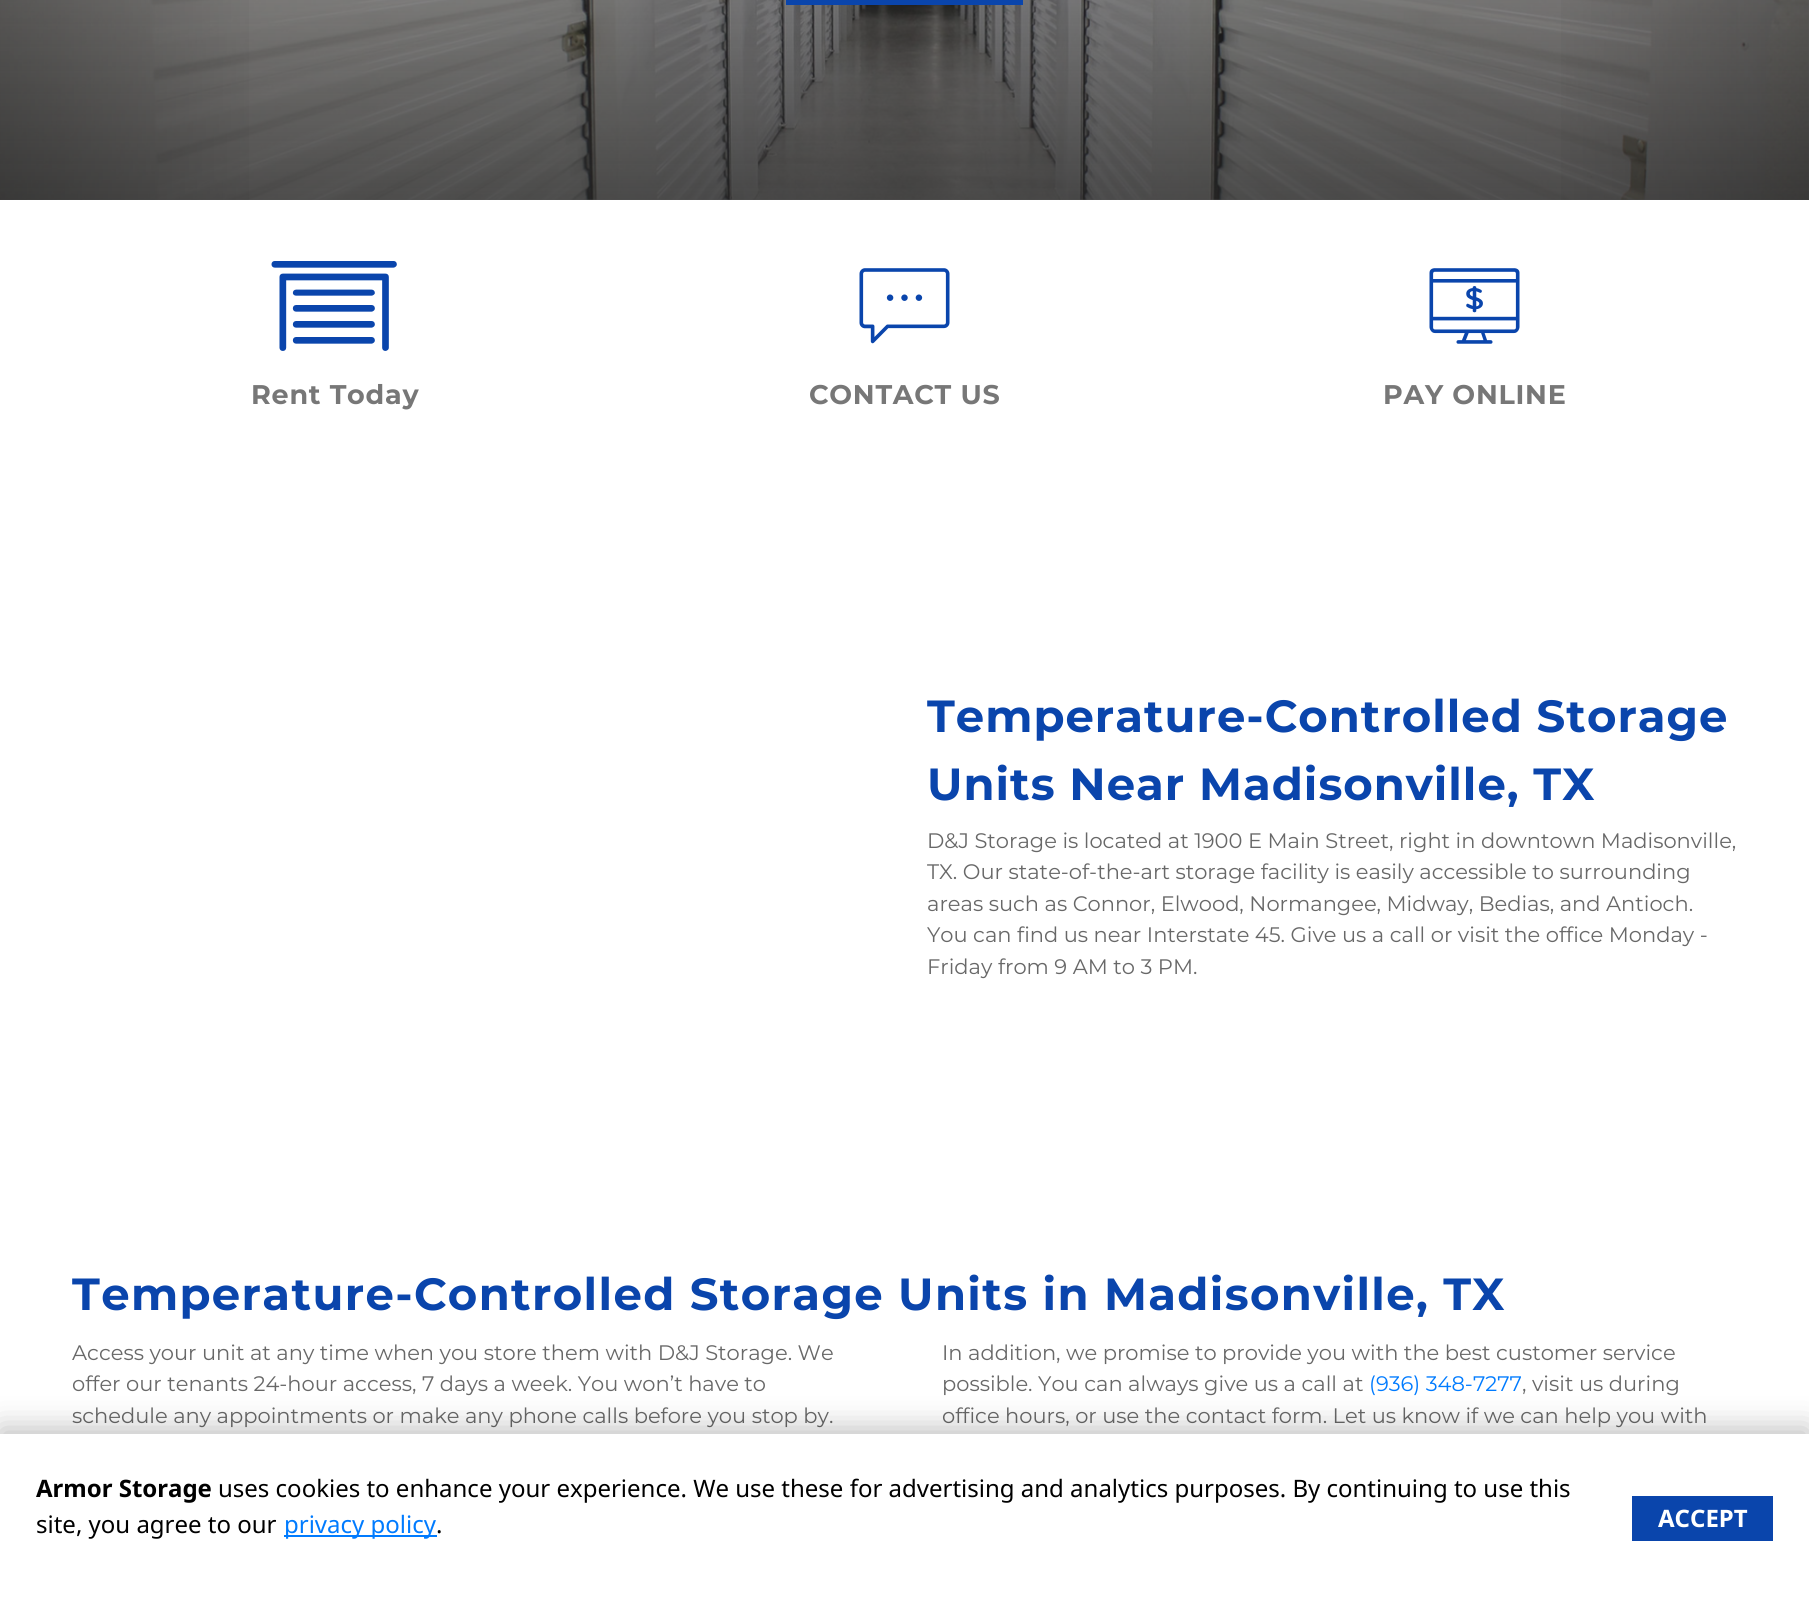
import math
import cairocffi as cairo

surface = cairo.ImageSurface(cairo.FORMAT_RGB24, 1809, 1602)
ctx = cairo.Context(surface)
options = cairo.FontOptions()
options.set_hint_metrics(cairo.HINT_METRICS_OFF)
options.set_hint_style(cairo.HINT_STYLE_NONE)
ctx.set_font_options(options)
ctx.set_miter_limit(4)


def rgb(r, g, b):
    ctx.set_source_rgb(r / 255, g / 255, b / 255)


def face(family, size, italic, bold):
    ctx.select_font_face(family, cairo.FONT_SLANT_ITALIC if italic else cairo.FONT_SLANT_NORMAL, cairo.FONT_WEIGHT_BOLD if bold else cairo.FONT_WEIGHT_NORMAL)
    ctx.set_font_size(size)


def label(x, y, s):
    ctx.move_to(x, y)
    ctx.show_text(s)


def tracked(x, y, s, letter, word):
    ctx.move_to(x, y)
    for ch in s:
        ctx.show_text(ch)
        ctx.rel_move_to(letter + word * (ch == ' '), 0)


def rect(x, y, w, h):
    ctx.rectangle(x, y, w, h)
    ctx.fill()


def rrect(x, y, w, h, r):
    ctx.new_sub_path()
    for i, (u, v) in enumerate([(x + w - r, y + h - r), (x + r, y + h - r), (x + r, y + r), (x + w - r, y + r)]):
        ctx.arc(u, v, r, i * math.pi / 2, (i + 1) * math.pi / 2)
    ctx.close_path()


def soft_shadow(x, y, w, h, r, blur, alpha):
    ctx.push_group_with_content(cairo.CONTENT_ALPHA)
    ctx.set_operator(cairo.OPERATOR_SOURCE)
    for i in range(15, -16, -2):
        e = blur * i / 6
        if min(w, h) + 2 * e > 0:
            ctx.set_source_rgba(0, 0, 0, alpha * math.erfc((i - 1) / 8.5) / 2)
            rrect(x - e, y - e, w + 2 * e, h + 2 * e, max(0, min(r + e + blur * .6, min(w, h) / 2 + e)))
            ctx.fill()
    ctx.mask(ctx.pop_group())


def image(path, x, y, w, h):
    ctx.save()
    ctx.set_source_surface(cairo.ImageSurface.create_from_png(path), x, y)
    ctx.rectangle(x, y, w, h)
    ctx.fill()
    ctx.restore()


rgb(255, 255, 255)
ctx.paint()
image('image0.png', 0, 0, 1809, 200)
gradient = cairo.LinearGradient(905, -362, 905, 200)
gradient.add_color_stop_rgba(0, 0.157, 0.157, 0.157, 0.2)
gradient.add_color_stop_rgba(1, 0.157, 0.157, 0.157, 0.8)
ctx.set_source(gradient)
rect(0, 0, 1809, 200)
gradient = cairo.LinearGradient(0, -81, 272, -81)
gradient.add_color_stop_rgba(0, 0, 0, 0, 0.25)
gradient.add_color_stop_rgba(1, 0, 0, 0, 0)
ctx.set_source(gradient)
rect(0, 0, 249, 200)
gradient = cairo.LinearGradient(1538, -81, 1809, -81)
gradient.add_color_stop_rgba(0, 0, 0, 0, 0)
gradient.add_color_stop_rgba(1, 0, 0, 0, 0.25)
ctx.set_source(gradient)
rect(1561, 0, 248, 200)
rgb(10, 69, 172)
rect(786, 0, 237, 5)
image('image1.png', 271, 261, 126, 90)
face('Montserrat', 27, 0, 1)
rgb(119, 119, 119)
tracked(251, 404, 'Rent Today', 0.75, 0)
image('image2.png', 859, 268, 91, 76)
tracked(809, 404, 'CONTACT US', 0.75, 0)
image('image3.png', 1429, 268, 91, 76)
tracked(1383, 404, 'PAY ONLINE', 0.75, 0)
face('Montserrat', 45, 0, 1)
rgb(10, 69, 172)
tracked(927, 732, 'Temperature-Controlled Storage', 1, 0)
tracked(927, 800, 'Units Near Madisonville, TX', 1, 0)
face('Montserrat', 21, 0, 0)
rgb(104, 104, 104)
label(927, 848, 'D&J Storage is located at 1900 E Main Street, right in downtown Madisonville,')
label(927, 879, 'TX. Our state-of-the-art storage facility is easily accessible to surrounding')
label(927, 911, 'areas such as Connor, Elwood, Normangee, Midway, Bedias, and Antioch.')
label(927, 942, 'You can find us near Interstate 45. Give us a call or visit the office Monday -')
label(927, 974, 'Friday from 9 AM to 3 PM.')
face('Montserrat', 45, 0, 1)
rgb(10, 69, 172)
tracked(72, 1310, 'Temperature-Controlled Storage Units in Madisonville, TX', 1.35, 0)
face('Montserrat', 21, 0, 0)
rgb(104, 104, 104)
label(72, 1360, 'Access your unit at any time when you store them with D&J Storage. We')
label(72, 1391, 'offer our tenants 24-hour access, 7 days a week. You won’t have to')
label(72, 1423, 'schedule any appointments or make any phone calls before you stop by.')
label(942, 1360, 'In addition, we promise to provide you with the best customer service')
label(942, 1391, 'possible. You can always give us a call at')
rgb(0, 123, 255)
label(1369, 1391, '(936) 348-7277')
rgb(104, 104, 104)
label(1522, 1391, ', visit us during')
label(942, 1423, 'office hours, or use the contact form. Let us know if we can help you with')
rgb(0, 0, 0)
soft_shadow(0, 1428, 1809, 168, 0, 15, 0.25)
rgb(255, 255, 255)
rect(0, 1434, 1809, 168)
face('Noto Sans', 24, 0, 1)
rgb(0, 0, 0)
label(36, 1497, 'Armor Storage')
face('Noto Sans', 24, 0, 0)
label(218, 1497, 'uses cookies to enhance your experience. We use these for advertising and analytics purposes. By continuing to use this')
label(36, 1533, 'site, you agree to our')
rgb(0, 123, 255)
rect(284, 1535, 153, 2)
label(284, 1533, 'privacy policy')
rgb(0, 0, 0)
label(436, 1533, '.')
rgb(10, 69, 172)
rect(1632, 1496, 141, 45)
face('Noto Sans', 24, 0, 1)
rgb(255, 255, 255)
label(1658, 1527, 'ACCEPT')
surface.write_to_png('render.png')
